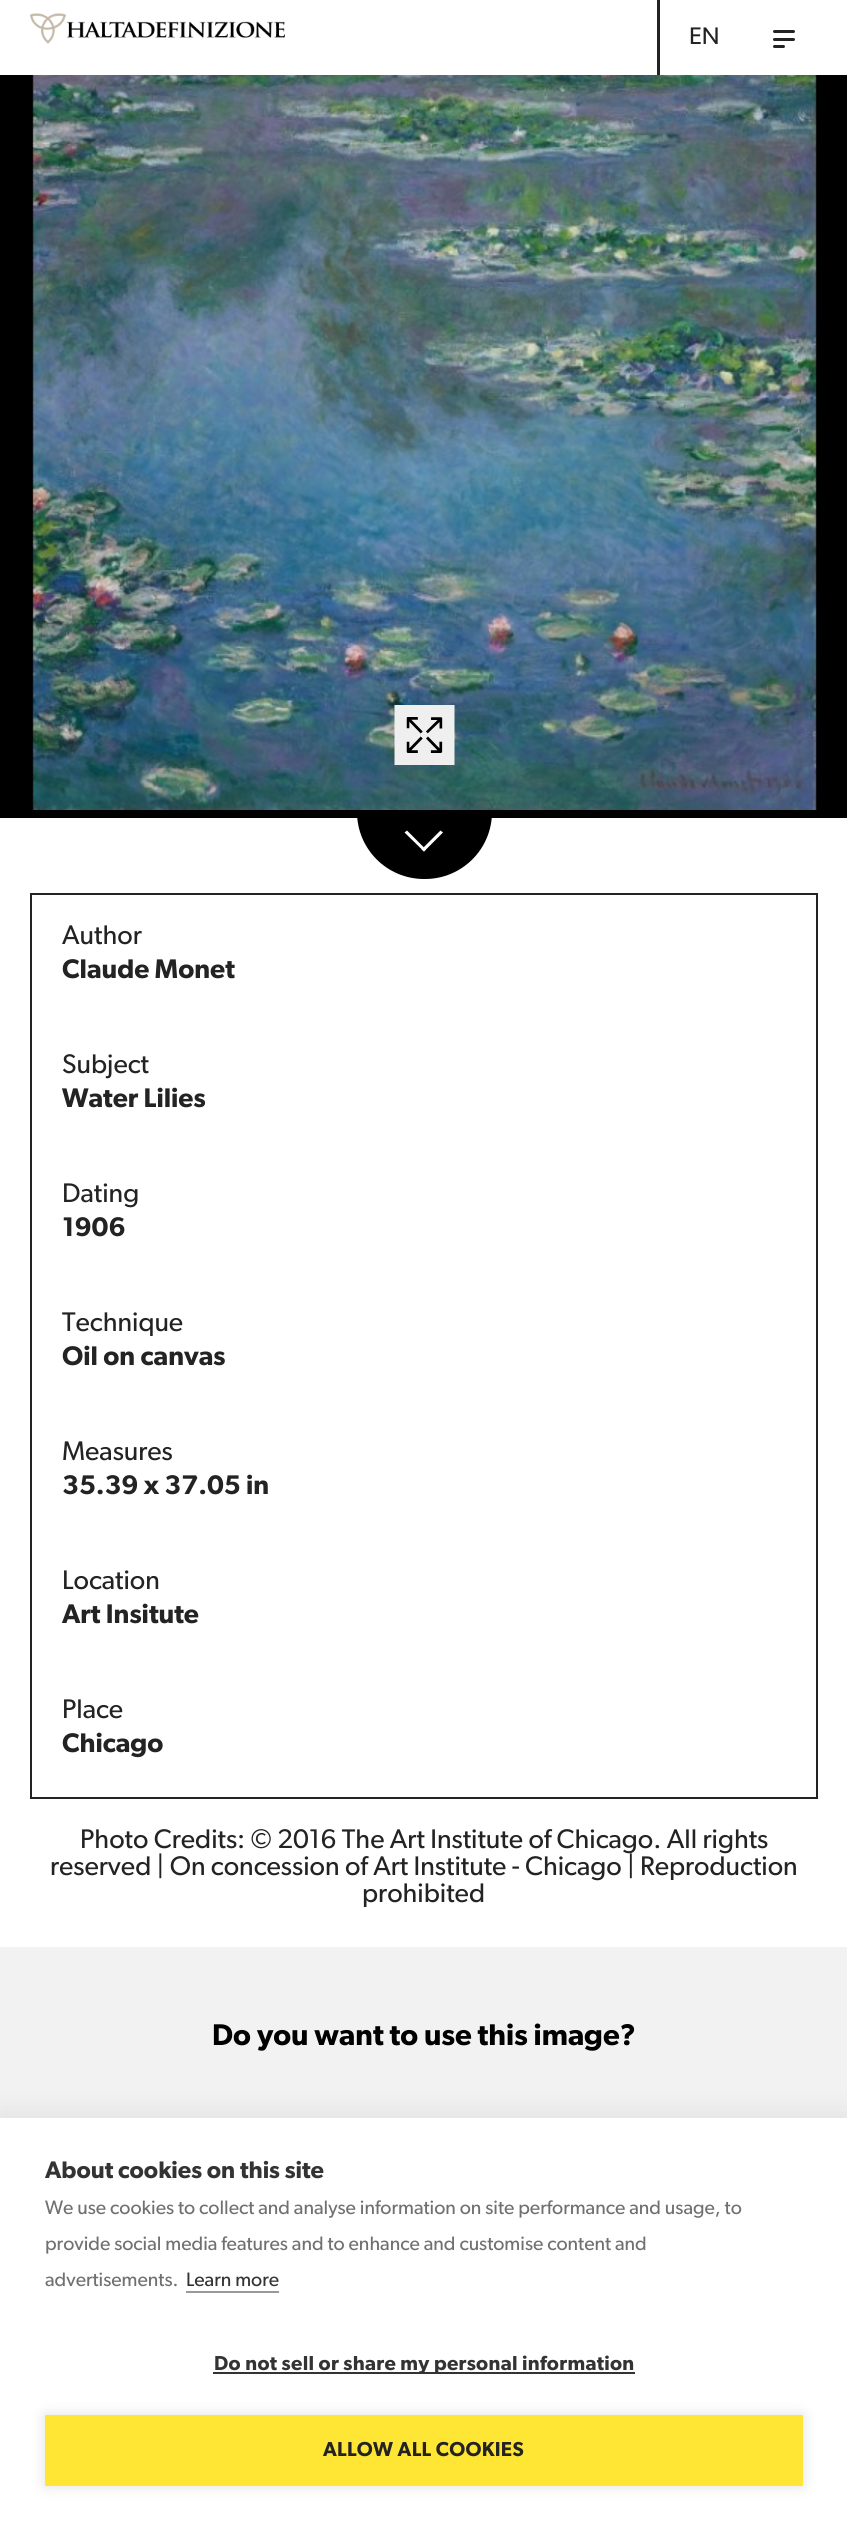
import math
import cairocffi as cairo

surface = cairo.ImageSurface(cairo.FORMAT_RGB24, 847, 2523)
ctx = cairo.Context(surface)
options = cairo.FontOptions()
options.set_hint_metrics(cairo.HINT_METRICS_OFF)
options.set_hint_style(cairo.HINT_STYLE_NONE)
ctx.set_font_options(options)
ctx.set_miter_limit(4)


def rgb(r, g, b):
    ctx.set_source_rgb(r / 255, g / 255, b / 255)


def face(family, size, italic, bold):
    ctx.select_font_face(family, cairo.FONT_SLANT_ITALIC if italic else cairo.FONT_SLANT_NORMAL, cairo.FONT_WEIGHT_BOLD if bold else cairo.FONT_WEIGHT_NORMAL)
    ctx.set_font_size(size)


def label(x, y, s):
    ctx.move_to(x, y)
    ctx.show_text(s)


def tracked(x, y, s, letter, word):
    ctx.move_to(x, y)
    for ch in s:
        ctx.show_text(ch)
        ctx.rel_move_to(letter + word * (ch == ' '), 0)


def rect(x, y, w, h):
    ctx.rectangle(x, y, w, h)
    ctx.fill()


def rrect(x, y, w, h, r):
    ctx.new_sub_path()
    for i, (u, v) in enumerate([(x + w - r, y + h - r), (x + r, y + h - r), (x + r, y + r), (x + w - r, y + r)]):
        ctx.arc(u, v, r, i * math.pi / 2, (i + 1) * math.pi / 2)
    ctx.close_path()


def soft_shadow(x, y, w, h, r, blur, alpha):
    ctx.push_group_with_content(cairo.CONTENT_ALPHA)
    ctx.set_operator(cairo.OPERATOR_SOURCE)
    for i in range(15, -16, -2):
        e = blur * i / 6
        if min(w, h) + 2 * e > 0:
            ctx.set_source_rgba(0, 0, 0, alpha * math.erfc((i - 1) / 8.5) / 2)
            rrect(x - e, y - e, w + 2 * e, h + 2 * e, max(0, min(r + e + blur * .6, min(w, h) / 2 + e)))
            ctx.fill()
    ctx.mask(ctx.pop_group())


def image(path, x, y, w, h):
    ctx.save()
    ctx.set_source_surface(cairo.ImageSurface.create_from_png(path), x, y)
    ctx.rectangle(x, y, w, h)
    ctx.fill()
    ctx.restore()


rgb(255, 255, 255)
ctx.paint()
image('image0.png', 30, 13, 255, 31)
rgb(35, 35, 35)
rect(657, 0, 3, 75)
face('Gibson', 24, 0, 0)
label(689, 44, 'EN')
rrect(773, 30, 22, 3, 1.5)
ctx.fill()
rrect(773, 38, 22, 3, 1.5)
ctx.fill()
rrect(773, 45, 12, 3, 1.5)
ctx.fill()
rgb(0, 0, 0)
rect(0, 75, 847, 743)
image('image1.png', 32, 75, 785, 735)
ctx.save()
ctx.new_path()
ctx.move_to(357, 812)
ctx.line_to(492, 812)
ctx.curve_to(492, 849, 462, 879, 425, 879)
ctx.line_to(424, 879)
ctx.curve_to(387, 879, 357, 849, 357, 812)
ctx.close_path()
ctx.clip()
rect(357, 812, 135, 67)
ctx.restore()
rgb(255, 255, 255)
ctx.new_path()
ctx.move_to(443, 832.5)
ctx.line_to(424, 851.5)
ctx.line_to(421.5, 849.5)
ctx.line_to(440.5, 830.5)
ctx.close_path()
ctx.fill()
ctx.new_path()
ctx.move_to(426, 849.5)
ctx.line_to(424, 851.5)
ctx.line_to(404.5, 832.5)
ctx.line_to(407, 830.5)
ctx.close_path()
ctx.fill()
ctx.rectangle(31, 894, 786, 904)
rgb(35, 35, 35)
ctx.stroke()
face('Gibson', 27, 0, 0)
label(62, 944, 'Author')
face('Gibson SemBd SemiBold', 27, 0, 0)
label(62, 978, 'Claude Monet')
face('Gibson', 27, 0, 0)
label(62, 1073, 'Subject')
face('Gibson SemBd SemiBold', 27, 0, 0)
label(62, 1107, 'Water Lilies')
face('Gibson', 27, 0, 0)
label(62, 1202, 'Dating')
face('Gibson SemBd SemiBold', 27, 0, 0)
label(62, 1236, '1906')
face('Gibson', 27, 0, 0)
label(62, 1331, 'Technique')
face('Gibson SemBd SemiBold', 27, 0, 0)
label(62, 1365, 'Oil on canvas')
face('Gibson', 27, 0, 0)
label(62, 1460, 'Measures')
face('Gibson SemBd SemiBold', 27, 0, 0)
label(62, 1494, '35.39 x 37.05 in')
face('Gibson', 27, 0, 0)
label(62, 1589, 'Location')
face('Gibson SemBd SemiBold', 27, 0, 0)
label(62, 1623, 'Art Insitute')
face('Gibson', 27, 0, 0)
label(62, 1718, 'Place')
face('Gibson SemBd SemiBold', 27, 0, 0)
label(62, 1752, 'Chicago')
face('Gibson', 27, 0, 0)
label(80, 1848, 'Photo Credits: © 2016 The Art Institute of Chicago. All rights')
label(50, 1875, 'reserved | On concession of Art Institute - Chicago | Reproduction')
label(362, 1902, 'prohibited')
rgb(242, 242, 242)
rect(0, 1947, 847, 171)
face('Gibson SemBd SemiBold', 30, 0, 0)
rgb(0, 0, 0)
label(212, 2045, 'Do you want to use this image?')
rgb(0, 0, 0)
soft_shadow(0, 2118, 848, 405, 0, 15, 0.1)
rgb(255, 255, 255)
rect(0, 2118, 847, 405)
face('Gibson SemBd SemiBold', 24, 0, 0)
rgb(51, 51, 51)
label(45, 2178, 'About cookies on this site')
face('Gibson', 19.5, 0, 0)
rgb(112, 112, 112)
label(45, 2214, 'We use cookies to collect and analyse information on site performance and usage, to')
label(45, 2250, 'provide social media features and to enhance and customise content and')
label(45, 2286, 'advertisements.')
rgb(51, 51, 51)
label(186, 2286, 'Learn more')
rgb(153, 153, 153)
rect(186, 2291, 93, 2)
rgb(51, 51, 51)
rect(213, 2372, 422, 2)
face('Gibson SemBd SemiBold', 20.25, 0, 0)
tracked(214, 2370, 'Do not sell or share my personal information', 0.3, 0)
rgb(0, 0, 0)
soft_shadow(45, 2415, 758, 71, 0, 7.5, 0.12)
rgb(255, 229, 52)
rect(45, 2415, 758, 71)
rgb(35, 35, 35)
tracked(323, 2456, 'ALLOW ALL COOKIES', 0.3, 0)
surface.write_to_png('render.png')
